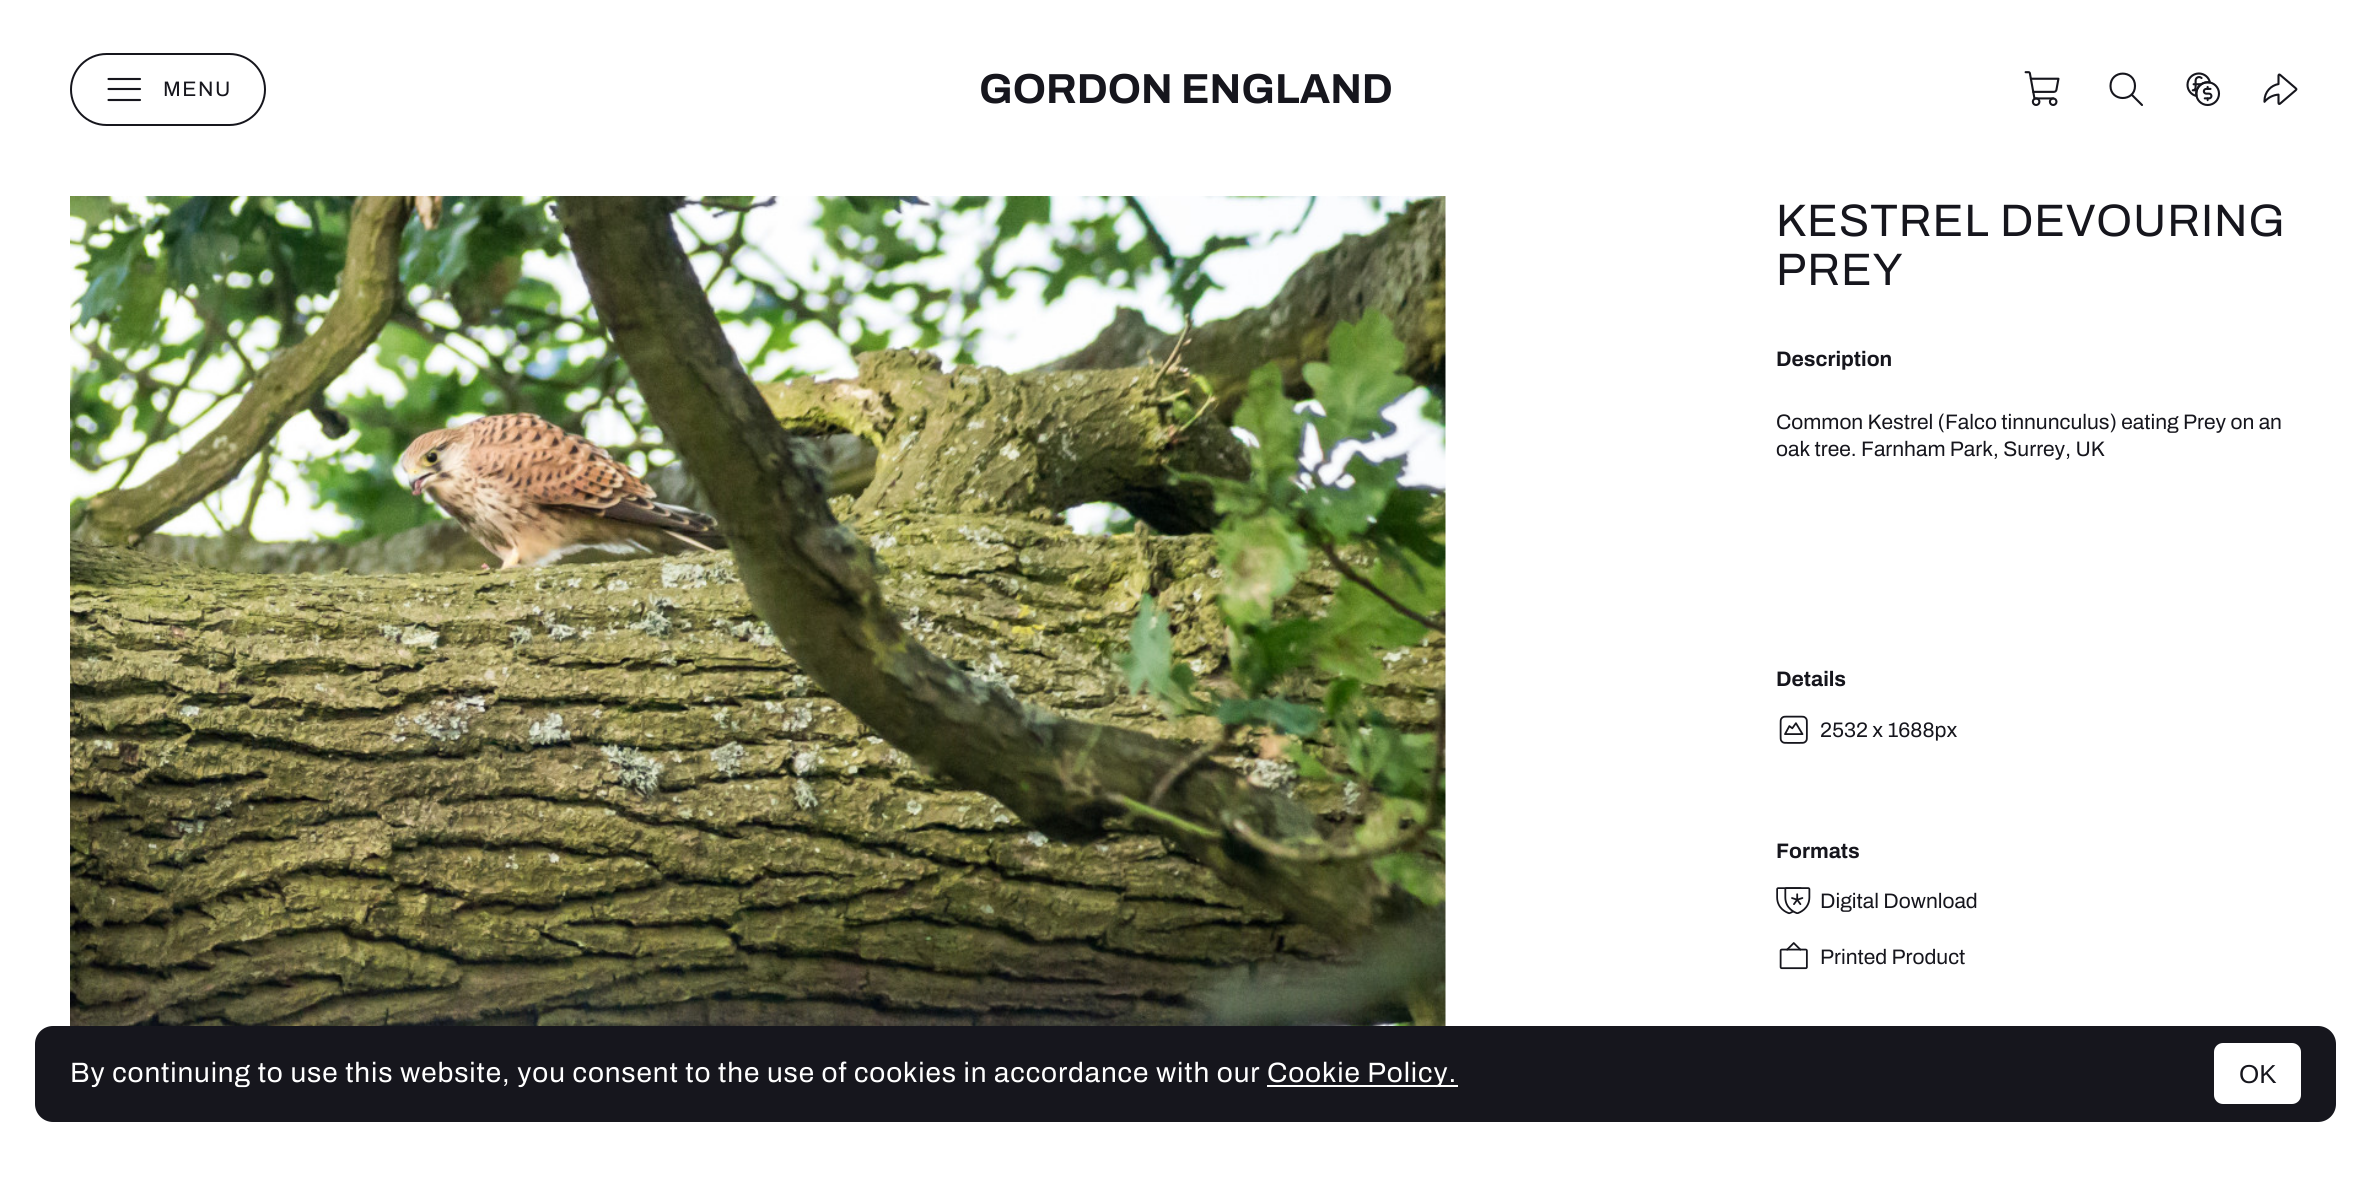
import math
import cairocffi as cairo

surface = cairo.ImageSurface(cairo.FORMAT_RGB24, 2370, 1182)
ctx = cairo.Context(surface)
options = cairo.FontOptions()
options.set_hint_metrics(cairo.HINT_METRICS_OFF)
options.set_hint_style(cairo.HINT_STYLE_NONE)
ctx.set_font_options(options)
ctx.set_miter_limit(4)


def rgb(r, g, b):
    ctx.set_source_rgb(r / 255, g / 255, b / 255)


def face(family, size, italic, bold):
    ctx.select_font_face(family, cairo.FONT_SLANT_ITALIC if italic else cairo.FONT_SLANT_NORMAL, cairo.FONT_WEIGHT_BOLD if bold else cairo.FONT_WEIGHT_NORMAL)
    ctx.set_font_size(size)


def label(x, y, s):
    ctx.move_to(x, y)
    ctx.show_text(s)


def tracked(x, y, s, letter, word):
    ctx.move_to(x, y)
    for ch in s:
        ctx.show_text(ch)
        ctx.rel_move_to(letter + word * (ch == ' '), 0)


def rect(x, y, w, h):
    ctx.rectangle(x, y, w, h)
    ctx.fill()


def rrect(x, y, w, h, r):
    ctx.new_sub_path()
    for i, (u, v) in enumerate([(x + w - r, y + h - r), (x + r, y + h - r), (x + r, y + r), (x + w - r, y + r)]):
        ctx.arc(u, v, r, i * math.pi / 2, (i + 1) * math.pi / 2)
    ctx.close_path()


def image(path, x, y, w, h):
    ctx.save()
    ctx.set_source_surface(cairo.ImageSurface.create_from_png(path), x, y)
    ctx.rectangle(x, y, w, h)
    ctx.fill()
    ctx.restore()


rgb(255, 255, 255)
ctx.paint()
rrect(71, 54, 194, 71, 35.5)
rgb(22, 22, 29)
ctx.stroke()
ctx.new_path()
ctx.move_to(108.5, 89)
ctx.line_to(140, 89)
ctx.move_to(108.5, 79)
ctx.line_to(140, 79)
ctx.move_to(108.5, 100)
ctx.line_to(140, 100)
ctx.set_line_width(2.1)
ctx.set_line_cap(cairo.LINE_CAP_ROUND)
ctx.set_line_join(cairo.LINE_JOIN_ROUND)
ctx.stroke()
face('Archivo', 21, 0, 0)
tracked(163, 96, 'MENU', 1.5, 0)
face('Archivo', 42, 0, 1)
label(979, 103, 'GORDON ENGLAND')
image('image0.png', 2024, 71, 36, 35)
ctx.new_path()
ctx.move_to(2142, 105)
ctx.line_to(2131.5, 94.5)
ctx.move_to(2135, 86)
ctx.curve_to(2135, 102, 2110.5, 102, 2110.5, 86)
ctx.curve_to(2110.5, 69.5, 2135, 69.5, 2135, 86)
ctx.close_path()
ctx.stroke()
image('image1.png', 2186, 72, 35, 35)
image('image2.png', 2263, 73, 35, 32)
image('image3.png', 70, 196, 1376, 830)
face('Archivo', 45.5, 0, 0)
tracked(1776, 236, 'KESTREL DEVOURING', 0.88, 0)
tracked(1776, 285, 'PREY', 0.88, 0)
face('Archivo', 21, 0, 1)
label(1776, 366, 'Description')
face('Archivo', 21, 0, 0)
label(1776, 429, 'Common Kestrel (Falco tinnunculus) eating Prey on an')
label(1776, 456, 'oak tree. Farnham Park, Surrey, UK')
face('Archivo', 21, 0, 1)
label(1776, 686, 'Details')
image('image4.png', 1779, 715, 29, 29)
face('Archivo', 21, 0, 0)
label(1820, 737, '2532 x 1688px')
face('Archivo', 21, 0, 1)
label(1776, 858, 'Formats')
image('image5.png', 1776, 887, 35, 28)
face('Archivo', 21, 0, 0)
label(1820, 908, 'Digital Download')
image('image6.png', 1779, 942, 29, 28)
label(1820, 964, 'Printed Product')
rrect(35, 1026, 2301, 96, 18)
ctx.fill()
face('Archivo', 28, 0, 0)
rgb(255, 255, 255)
tracked(70, 1082, 'By continuing to use this website, you consent to the use of cookies in accordance with our', 0.88, 0)
rect(1267, 1085, 191, 2)
tracked(1267, 1082, 'Cookie Policy.', 0.88, 0)
rrect(2214, 1043, 87, 61, 9)
ctx.fill()
face('Liberation Sans', 26, 0, 0)
rgb(22, 22, 29)
label(2239, 1083, 'OK')
surface.write_to_png('render.png')
